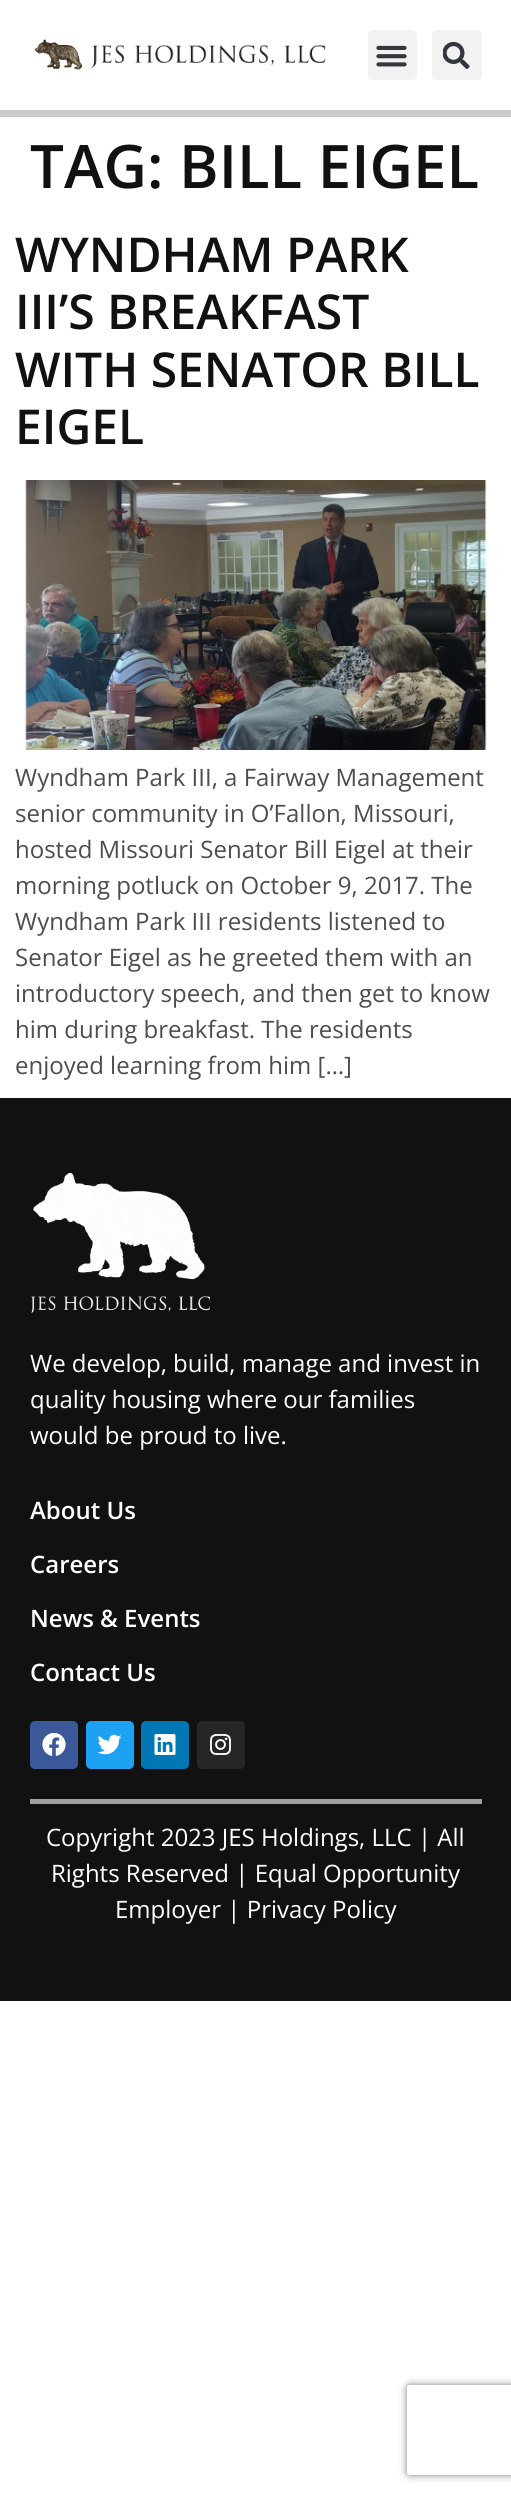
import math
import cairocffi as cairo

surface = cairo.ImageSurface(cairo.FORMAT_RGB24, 511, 2496)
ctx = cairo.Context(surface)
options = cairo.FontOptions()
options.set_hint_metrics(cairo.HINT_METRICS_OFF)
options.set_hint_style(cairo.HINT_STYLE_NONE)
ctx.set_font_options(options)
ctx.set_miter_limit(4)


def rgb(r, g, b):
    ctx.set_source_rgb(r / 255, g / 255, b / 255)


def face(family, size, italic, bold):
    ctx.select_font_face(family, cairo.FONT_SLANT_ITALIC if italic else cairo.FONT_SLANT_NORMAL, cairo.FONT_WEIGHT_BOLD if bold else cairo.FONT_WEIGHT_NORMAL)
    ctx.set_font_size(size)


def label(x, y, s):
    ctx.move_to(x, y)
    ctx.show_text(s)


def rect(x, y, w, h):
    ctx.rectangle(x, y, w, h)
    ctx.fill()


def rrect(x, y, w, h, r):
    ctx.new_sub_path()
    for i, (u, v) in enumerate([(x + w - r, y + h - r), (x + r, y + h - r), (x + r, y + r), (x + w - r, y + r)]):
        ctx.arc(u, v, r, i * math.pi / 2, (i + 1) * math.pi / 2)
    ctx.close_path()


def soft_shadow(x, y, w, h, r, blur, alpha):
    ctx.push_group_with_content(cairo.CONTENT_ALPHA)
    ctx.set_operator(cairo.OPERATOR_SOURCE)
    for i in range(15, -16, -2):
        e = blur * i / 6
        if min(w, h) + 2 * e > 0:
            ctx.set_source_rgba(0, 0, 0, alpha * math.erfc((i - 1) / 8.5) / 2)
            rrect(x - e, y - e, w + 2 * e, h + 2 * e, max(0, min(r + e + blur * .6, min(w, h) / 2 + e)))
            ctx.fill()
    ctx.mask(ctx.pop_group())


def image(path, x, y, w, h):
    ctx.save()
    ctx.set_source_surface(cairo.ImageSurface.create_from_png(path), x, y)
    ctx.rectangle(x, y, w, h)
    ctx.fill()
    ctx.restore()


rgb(255, 255, 255)
ctx.paint()
rgb(204, 204, 204)
rect(0, 110, 511, 7)
image('image0.png', 34, 39, 292, 31)
rgb(242, 242, 242)
rrect(368, 30, 49, 50, 5)
ctx.fill()
image('image1.png', 376, 45, 31, 22)
rrect(432, 30, 50, 50, 5)
ctx.fill()
image('image2.png', 443, 42, 27, 27)
face('Open Sans SemiBold', 60, 0, 0)
rgb(17, 17, 17)
label(30, 188, 'TAG: BILL EIGEL')
face('Open Sans SemiBold', 48, 0, 0)
label(15, 272, 'WYNDHAM PARK')
label(15, 329, 'III’S BREAKFAST')
label(15, 387, 'WITH SENATOR BILL')
label(15, 444, 'EIGEL')
image('image3.png', 25, 480, 462, 270)
face('Open Sans', 24, 0, 0)
rgb(77, 77, 77)
label(15, 786, 'Wyndham Park III, a Fairway Management')
label(15, 822, 'senior community in O’Fallon, Missouri,')
label(15, 858, 'hosted Missouri Senator Bill Eigel at their')
label(15, 894, 'morning potluck on October 9, 2017. The')
label(15, 930, 'Wyndham Park III residents listened to')
label(15, 966, 'Senator Eigel as he greeted them with an')
label(15, 1002, 'introductory speech, and then get to know')
label(15, 1038, 'him during breakfast. The residents')
label(15, 1074, 'enjoyed learning from him […]')
rgb(17, 17, 17)
rect(0, 1098, 511, 903)
image('image4.png', 31, 1173, 179, 140)
rgb(255, 255, 255)
label(30, 1372, 'We develop, build, manage and invest in')
label(30, 1408, 'quality housing where our families')
label(30, 1444, 'would be proud to live.')
face('Open Sans SemiBold', 24, 0, 0)
label(30, 1519, 'About Us')
label(30, 1573, 'Careers')
label(30, 1627, 'News & Events')
label(30, 1681, 'Contact Us')
rgb(59, 89, 152)
rrect(30, 1721, 48, 48, 5)
ctx.fill()
image('image5.png', 42, 1733, 24, 23)
rgb(29, 161, 242)
rrect(86, 1721, 48, 48, 5)
ctx.fill()
image('image6.png', 98, 1734, 24, 21)
rgb(0, 119, 181)
rrect(141, 1721, 48, 48, 5)
ctx.fill()
image('image7.png', 154, 1734, 22, 21)
rgb(38, 38, 38)
rrect(197, 1721, 48, 48, 5)
ctx.fill()
image('image8.png', 210, 1734, 21, 21)
rgb(159, 159, 159)
rect(30, 1799, 452, 5)
face('Open Sans', 24, 0, 0)
rgb(255, 255, 255)
label(46, 1846, 'Copyright 2023 JES Holdings, LLC | All')
label(51, 1882, 'Rights Reserved | Equal Opportunity')
label(115, 1918, 'Employer | Privacy Policy')
ctx.save()
ctx.set_fill_rule(cairo.FILL_RULE_EVEN_ODD)
ctx.new_path()
ctx.move_to(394, 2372)
ctx.line_to(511, 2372)
ctx.line_to(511, 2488)
ctx.line_to(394, 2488)
ctx.close_path()
ctx.move_to(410, 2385)
ctx.line_to(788, 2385)
ctx.curve_to(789.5, 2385, 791, 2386.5, 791, 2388)
ctx.line_to(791, 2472)
ctx.curve_to(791, 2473.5, 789.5, 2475, 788, 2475)
ctx.line_to(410, 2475)
ctx.curve_to(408.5, 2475, 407, 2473.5, 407, 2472)
ctx.line_to(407, 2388)
ctx.curve_to(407, 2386.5, 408.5, 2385, 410, 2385)
ctx.close_path()
ctx.clip()
rgb(128, 128, 128)
soft_shadow(407, 2385, 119, 90, 3, 4, 1)
ctx.restore()
surface.write_to_png('render.png')
